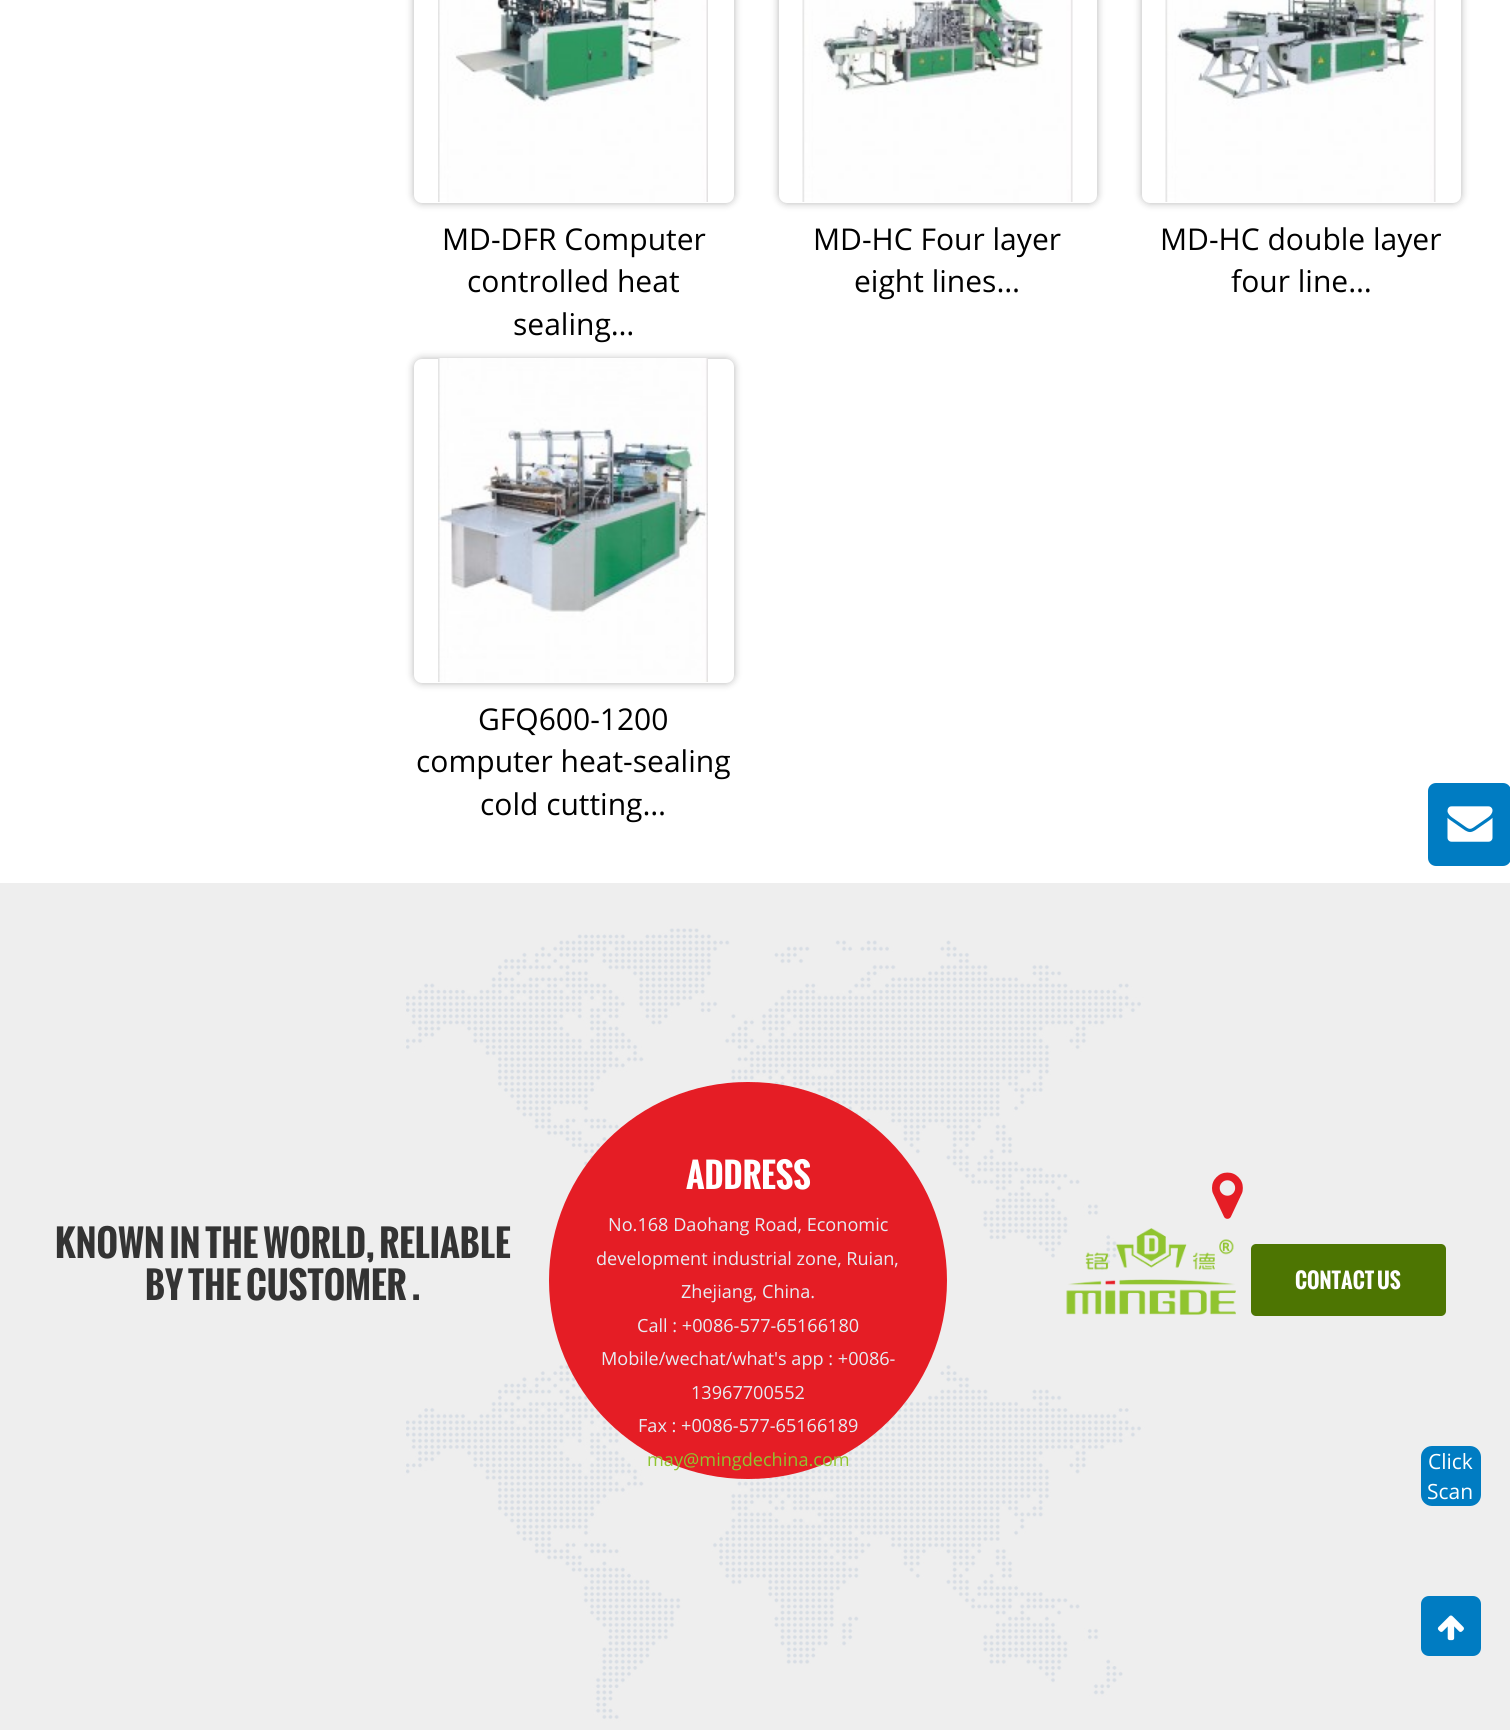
import math
import cairocffi as cairo

surface = cairo.ImageSurface(cairo.FORMAT_RGB24, 1510, 1730)
ctx = cairo.Context(surface)
options = cairo.FontOptions()
options.set_hint_metrics(cairo.HINT_METRICS_OFF)
options.set_hint_style(cairo.HINT_STYLE_NONE)
ctx.set_font_options(options)
ctx.set_miter_limit(4)


def rgb(r, g, b):
    ctx.set_source_rgb(r / 255, g / 255, b / 255)


def face(family, size, italic, bold):
    ctx.select_font_face(family, cairo.FONT_SLANT_ITALIC if italic else cairo.FONT_SLANT_NORMAL, cairo.FONT_WEIGHT_BOLD if bold else cairo.FONT_WEIGHT_NORMAL)
    ctx.set_font_size(size)


def label(x, y, s):
    ctx.move_to(x, y)
    ctx.show_text(s)


def rrect(x, y, w, h, r):
    ctx.new_sub_path()
    for i, (u, v) in enumerate([(x + w - r, y + h - r), (x + r, y + h - r), (x + r, y + r), (x + w - r, y + r)]):
        ctx.arc(u, v, r, i * math.pi / 2, (i + 1) * math.pi / 2)
    ctx.close_path()


def soft_shadow(x, y, w, h, r, blur, alpha):
    ctx.push_group_with_content(cairo.CONTENT_ALPHA)
    ctx.set_operator(cairo.OPERATOR_SOURCE)
    for i in range(15, -16, -2):
        e = blur * i / 6
        if min(w, h) + 2 * e > 0:
            ctx.set_source_rgba(0, 0, 0, alpha * math.erfc((i - 1) / 8.5) / 2)
            rrect(x - e, y - e, w + 2 * e, h + 2 * e, max(0, min(r + e + blur * .6, min(w, h) / 2 + e)))
            ctx.fill()
    ctx.mask(ctx.pop_group())


def image(path, x, y, w, h):
    ctx.save()
    ctx.set_source_surface(cairo.ImageSurface.create_from_png(path), x, y)
    ctx.rectangle(x, y, w, h)
    ctx.fill()
    ctx.restore()


rgb(255, 255, 255)
ctx.paint()
rgb(0, 0, 0)
soft_shadow(414, -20, 320, 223, 8, 4, 0.3)
rgb(255, 255, 255)
rrect(414, -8, 320, 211, 8)
ctx.fill()
image('image0.png', 438, 0, 270, 202)
face('Open Sans', 30, 0, 0)
rgb(0, 0, 0)
label(442, 250, 'MD-DFR Computer')
label(467, 292, 'controlled heat')
label(513, 335, 'sealing…')
rgb(0, 0, 0)
soft_shadow(779, -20, 318, 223, 8, 4, 0.3)
rgb(255, 255, 255)
rrect(779, -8, 318, 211, 8)
ctx.fill()
image('image1.png', 802, 0, 271, 202)
rgb(0, 0, 0)
label(813, 250, 'MD-HC Four layer')
label(854, 292, 'eight lines…')
rgb(0, 0, 0)
soft_shadow(1142, -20, 319, 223, 8, 4, 0.3)
rgb(255, 255, 255)
rrect(1142, -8, 319, 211, 8)
ctx.fill()
image('image2.png', 1165, 0, 271, 202)
rgb(0, 0, 0)
label(1160, 250, 'MD-HC double layer')
label(1231, 292, 'four line…')
rgb(0, 0, 0)
soft_shadow(414, 359, 320, 324, 8, 4, 0.3)
rgb(255, 255, 255)
rrect(414, 359, 320, 324, 8)
ctx.fill()
image('image3.png', 438, 358, 270, 324)
rgb(0, 0, 0)
label(478, 730, 'GFQ600-1200')
label(416, 772, 'computer heat-sealing')
label(480, 815, 'cold cutting…')
rgb(0, 124, 194)
rrect(1428, 783, 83, 83, 8)
ctx.fill()
image('image4.png', 1447, 806, 46, 36)
image('image5.png', 0, 883, 1510, 847)
face('Oswald', 36, 0, 1)
rgb(51, 51, 51)
label(55, 1258, 'KNOWN IN THE WORLD, RELIABLE')
label(145, 1300, 'BY THE CUSTOMER .')
rgb(229, 29, 37)
rrect(549, 1082, 398, 397, 198.5)
ctx.fill()
face('Oswald', 33.5, 0, 1)
rgb(255, 255, 255)
label(686, 1189, 'ADDRESS')
face('Open Sans', 18.1, 0, 0)
rgb(231, 237, 243)
label(608, 1231, 'No.168 Daohang Road, Economic')
label(596, 1265, 'development industrial zone, Ruian,')
label(681, 1298, 'Zhejiang, China.')
label(637, 1332, 'Call : +0086-577-65166180')
label(601, 1365, 'Mobile/wechat/what\'s app : +0086-')
label(691, 1399, '13967700552')
label(638, 1432, 'Fax : +0086-577-65166189')
rgb(144, 196, 47)
label(647, 1466, 'may@mingdechina.com')
image('image6.png', 1212, 1172, 31, 47)
image('image7.png', 1066, 1228, 170, 87)
rgb(77, 117, 2)
rrect(1251, 1244, 195, 72, 5)
ctx.fill()
face('Oswald', 21, 0, 1)
rgb(255, 255, 255)
label(1295, 1289, 'CONTACT US')
rgb(0, 124, 194)
rrect(1421, 1446, 60, 60, 11)
ctx.fill()
face('Open Sans', 21, 0, 0)
rgb(255, 255, 255)
label(1428, 1469, 'Click')
label(1427, 1499, 'Scan')
rgb(0, 124, 194)
rrect(1422, 1597, 58, 58, 7)
ctx.fill_preserve()
ctx.stroke()
image('image8.png', 1437, 1615, 27, 26)
surface.write_to_png('render.png')
